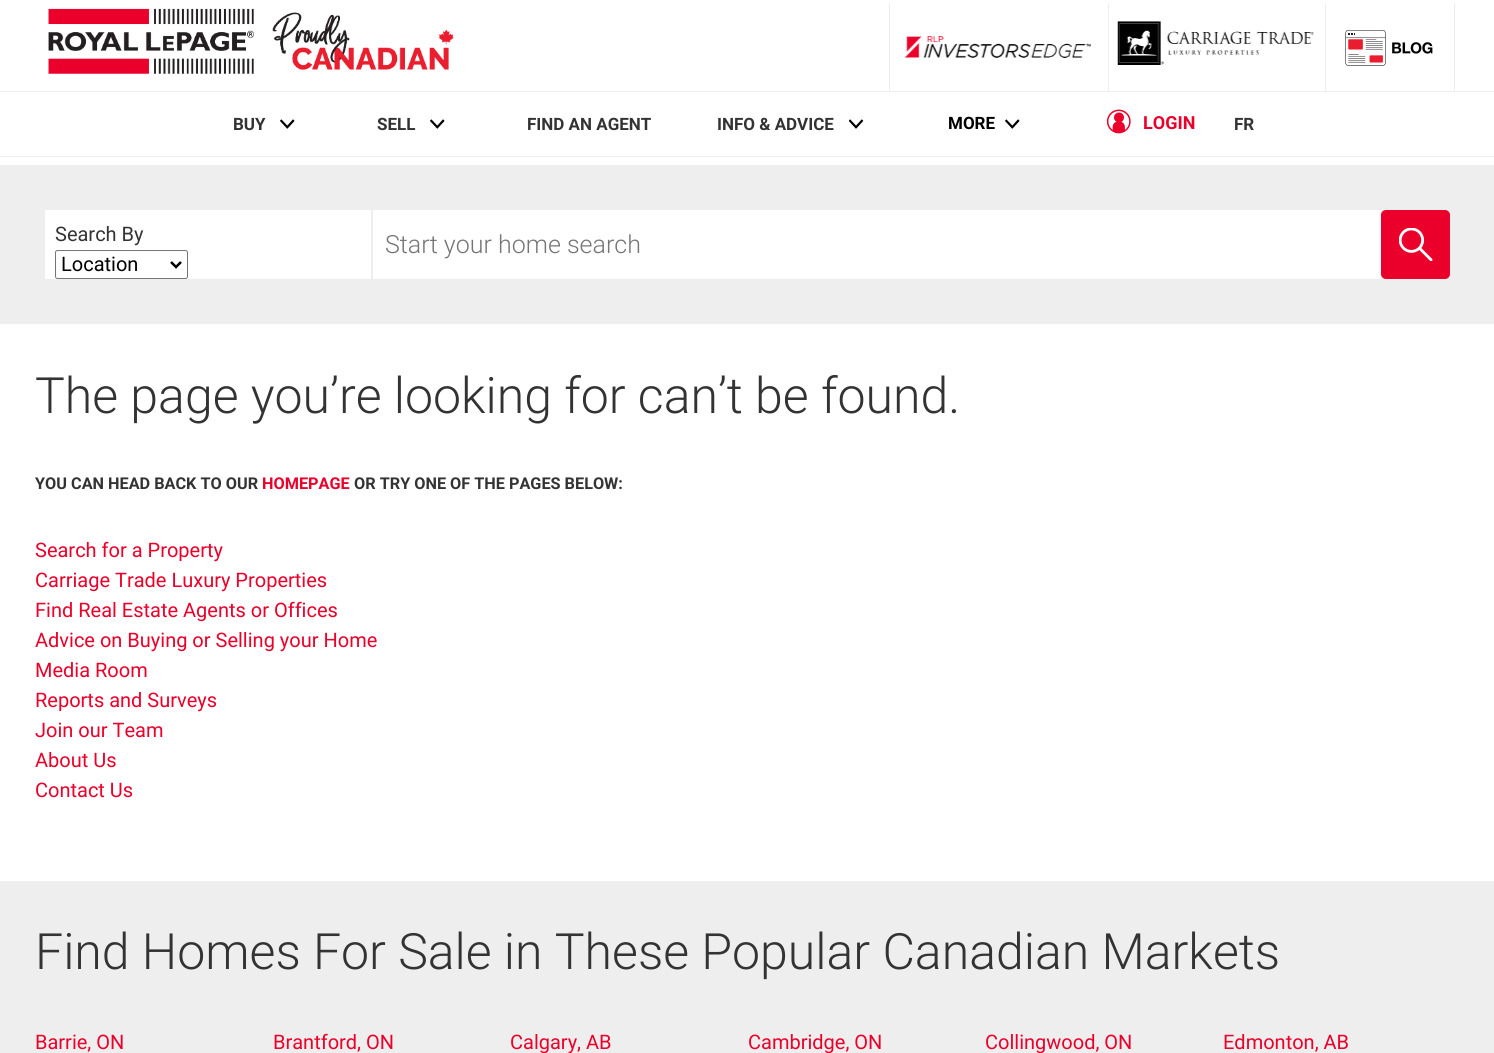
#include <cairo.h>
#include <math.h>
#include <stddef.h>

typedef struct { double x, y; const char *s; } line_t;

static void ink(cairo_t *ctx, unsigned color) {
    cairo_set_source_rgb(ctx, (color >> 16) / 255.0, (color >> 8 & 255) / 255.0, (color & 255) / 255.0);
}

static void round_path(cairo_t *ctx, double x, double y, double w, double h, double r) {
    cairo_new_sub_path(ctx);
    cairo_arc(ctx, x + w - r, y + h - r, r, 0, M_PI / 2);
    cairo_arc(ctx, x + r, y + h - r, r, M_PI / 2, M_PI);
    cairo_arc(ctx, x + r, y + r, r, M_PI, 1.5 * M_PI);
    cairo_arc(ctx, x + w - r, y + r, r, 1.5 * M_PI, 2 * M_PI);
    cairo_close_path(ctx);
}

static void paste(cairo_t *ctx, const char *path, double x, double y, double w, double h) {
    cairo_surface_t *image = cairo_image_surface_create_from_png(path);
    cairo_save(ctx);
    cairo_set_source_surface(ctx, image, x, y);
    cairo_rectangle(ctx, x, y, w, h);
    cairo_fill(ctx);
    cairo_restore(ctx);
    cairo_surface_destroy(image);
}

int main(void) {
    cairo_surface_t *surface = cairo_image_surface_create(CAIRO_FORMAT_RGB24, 1494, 1053);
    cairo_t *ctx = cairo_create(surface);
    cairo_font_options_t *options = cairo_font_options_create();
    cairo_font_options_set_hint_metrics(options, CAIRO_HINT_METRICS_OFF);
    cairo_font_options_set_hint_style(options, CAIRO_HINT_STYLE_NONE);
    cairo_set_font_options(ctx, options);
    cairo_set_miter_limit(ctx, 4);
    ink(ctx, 0xFFFFFF);
    cairo_paint(ctx);
    paste(ctx, "media/1.png", 48, 8, 406, 66);
    ink(ctx, 0xEEEEEE);
    cairo_rectangle(ctx, 889, 3, 1, 88);
    cairo_fill(ctx);
    paste(ctx, "media/2.png", 904, 36, 187, 22);
    cairo_rectangle(ctx, 1108, 3, 1, 88);
    cairo_fill(ctx);
    paste(ctx, "media/3.png", 1117, 21, 197, 44);
    cairo_rectangle(ctx, 1454, 3, 1, 88);
    cairo_fill(ctx);
    cairo_rectangle(ctx, 1325, 3, 1, 88);
    cairo_fill(ctx);
    paste(ctx, "media/4.png", 1345, 30, 88, 36);
    cairo_rectangle(ctx, 0, 91, 1494, 1);
    cairo_fill(ctx);
    cairo_rectangle(ctx, 0, 156, 1494, 1);
    cairo_fill(ctx);
    cairo_select_font_face(ctx, "Roboto", CAIRO_FONT_SLANT_NORMAL, CAIRO_FONT_WEIGHT_BOLD);
    cairo_set_font_size(ctx, 17);
    ink(ctx, 0x333333);
    cairo_move_to(ctx, 233, 130);
    cairo_show_text(ctx, "BUY");
    paste(ctx, "media/5.png", 280, 119, 15, 10);
    cairo_move_to(ctx, 377, 130);
    cairo_show_text(ctx, "SELL");
    paste(ctx, "media/5.png", 430, 119, 15, 10);
    cairo_move_to(ctx, 527, 130);
    cairo_show_text(ctx, "FIND AN AGENT");
    cairo_move_to(ctx, 717, 130);
    cairo_show_text(ctx, "INFO & ADVICE");
    paste(ctx, "media/6.png", 849, 119, 15, 10);
    ink(ctx, 0x000000);
    cairo_move_to(ctx, 948, 129);
    cairo_show_text(ctx, "MORE");
    paste(ctx, "media/5.png", 1005, 119, 15, 10);
    paste(ctx, "media/7.png", 1106, 109, 25, 25);
    cairo_set_font_size(ctx, 18);
    ink(ctx, 0xEA002A);
    cairo_move_to(ctx, 1143, 129);
    cairo_show_text(ctx, "LOGIN");
    cairo_set_font_size(ctx, 17);
    ink(ctx, 0x333333);
    cairo_move_to(ctx, 1234, 130);
    cairo_show_text(ctx, "FR");
    ink(ctx, 0xEEEEEE);
    cairo_rectangle(ctx, 0, 165, 1494, 159);
    cairo_fill(ctx);
    ink(ctx, 0xFFFFFF);
    cairo_rectangle(ctx, 45, 210, 326, 69);
    cairo_fill(ctx);
    cairo_select_font_face(ctx, "Roboto", CAIRO_FONT_SLANT_NORMAL, CAIRO_FONT_WEIGHT_NORMAL);
    cairo_set_font_size(ctx, 20);
    ink(ctx, 0x333333);
    cairo_move_to(ctx, 55, 241);
    cairo_show_text(ctx, "Search By");
    round_path(ctx, 55.5, 250.5, 132, 28, 2);
    ink(ctx, 0x767676);
    cairo_set_line_width(ctx, 1);
    cairo_stroke(ctx);
    cairo_new_path(ctx);
    cairo_move_to(ctx, 171, 262);
    cairo_line_to(ctx, 176, 267);
    cairo_line_to(ctx, 181, 262);
    ink(ctx, 0x000000);
    cairo_set_line_width(ctx, 2.5);
    cairo_stroke(ctx);
    cairo_move_to(ctx, 61, 271);
    cairo_show_text(ctx, "Location");
    ink(ctx, 0xFFFFFF);
    cairo_rectangle(ctx, 373, 210, 1008, 69);
    cairo_fill(ctx);
    cairo_select_font_face(ctx, "Roboto Light", CAIRO_FONT_SLANT_NORMAL, CAIRO_FONT_WEIGHT_NORMAL);
    cairo_set_font_size(ctx, 25);
    ink(ctx, 0x757575);
    cairo_move_to(ctx, 385, 253);
    cairo_show_text(ctx, "Start your home search");
    ink(ctx, 0xEA002A);
    round_path(ctx, 1381, 210, 69, 69, 5);
    cairo_fill(ctx);
    paste(ctx, "media/8.png", 1399, 228, 34, 33);
    cairo_set_font_size(ctx, 50);
    ink(ctx, 0x333333);
    cairo_move_to(ctx, 35, 413);
    cairo_show_text(ctx, "The page you’re looking for can’t be found.");
    cairo_select_font_face(ctx, "Roboto", CAIRO_FONT_SLANT_NORMAL, CAIRO_FONT_WEIGHT_BOLD);
    cairo_set_font_size(ctx, 16.25);
    cairo_move_to(ctx, 35, 489);
    cairo_show_text(ctx, "YOU CAN HEAD BACK TO OUR");
    ink(ctx, 0xEA002A);
    cairo_move_to(ctx, 262, 489);
    cairo_show_text(ctx, "HOMEPAGE");
    ink(ctx, 0x333333);
    cairo_move_to(ctx, 354, 489);
    cairo_show_text(ctx, "OR TRY ONE OF THE PAGES BELOW:");
    cairo_select_font_face(ctx, "Roboto", CAIRO_FONT_SLANT_NORMAL, CAIRO_FONT_WEIGHT_NORMAL);
    cairo_set_font_size(ctx, 20);
    ink(ctx, 0xEA002A);
    {
        static const line_t items[] = {
            {35, 557, "Search for a Property"},
            {35, 587, "Carriage Trade Luxury Properties"},
            {35, 617, "Find Real Estate Agents or Offices"},
            {35, 647, "Advice on Buying or Selling your Home"},
            {35, 677, "Media Room"},
            {35, 707, "Reports and Surveys"},
            {35, 737, "Join our Team"},
            {35, 767, "About Us"},
            {35, 797, "Contact Us"},
        };
        for (size_t i = 0; i < sizeof items / sizeof *items; i++) {
            cairo_move_to(ctx, items[i].x, items[i].y);
            cairo_show_text(ctx, items[i].s);
        }
    }
    ink(ctx, 0xEEEEEE);
    cairo_rectangle(ctx, 0, 881, 1494, 172);
    cairo_fill(ctx);
    cairo_select_font_face(ctx, "Roboto Light", CAIRO_FONT_SLANT_NORMAL, CAIRO_FONT_WEIGHT_NORMAL);
    cairo_set_font_size(ctx, 50);
    ink(ctx, 0x333333);
    cairo_move_to(ctx, 35, 969);
    cairo_show_text(ctx, "Find Homes For Sale in These Popular Canadian Markets");
    cairo_select_font_face(ctx, "Roboto", CAIRO_FONT_SLANT_NORMAL, CAIRO_FONT_WEIGHT_NORMAL);
    cairo_set_font_size(ctx, 20);
    ink(ctx, 0xEA002A);
    {
        static const line_t items[] = {
            {35, 1049, "Barrie, ON"},
            {273, 1049, "Brantford, ON"},
            {510, 1049, "Calgary, AB"},
            {748, 1049, "Cambridge, ON"},
            {985, 1049, "Collingwood, ON"},
            {1223, 1049, "Edmonton, AB"},
        };
        for (size_t i = 0; i < sizeof items / sizeof *items; i++) {
            cairo_move_to(ctx, items[i].x, items[i].y);
            cairo_show_text(ctx, items[i].s);
        }
    }
    cairo_surface_write_to_png(surface, "image.png");
    cairo_font_options_destroy(options);
    cairo_destroy(ctx);
    cairo_surface_destroy(surface);
    return 0;
}
